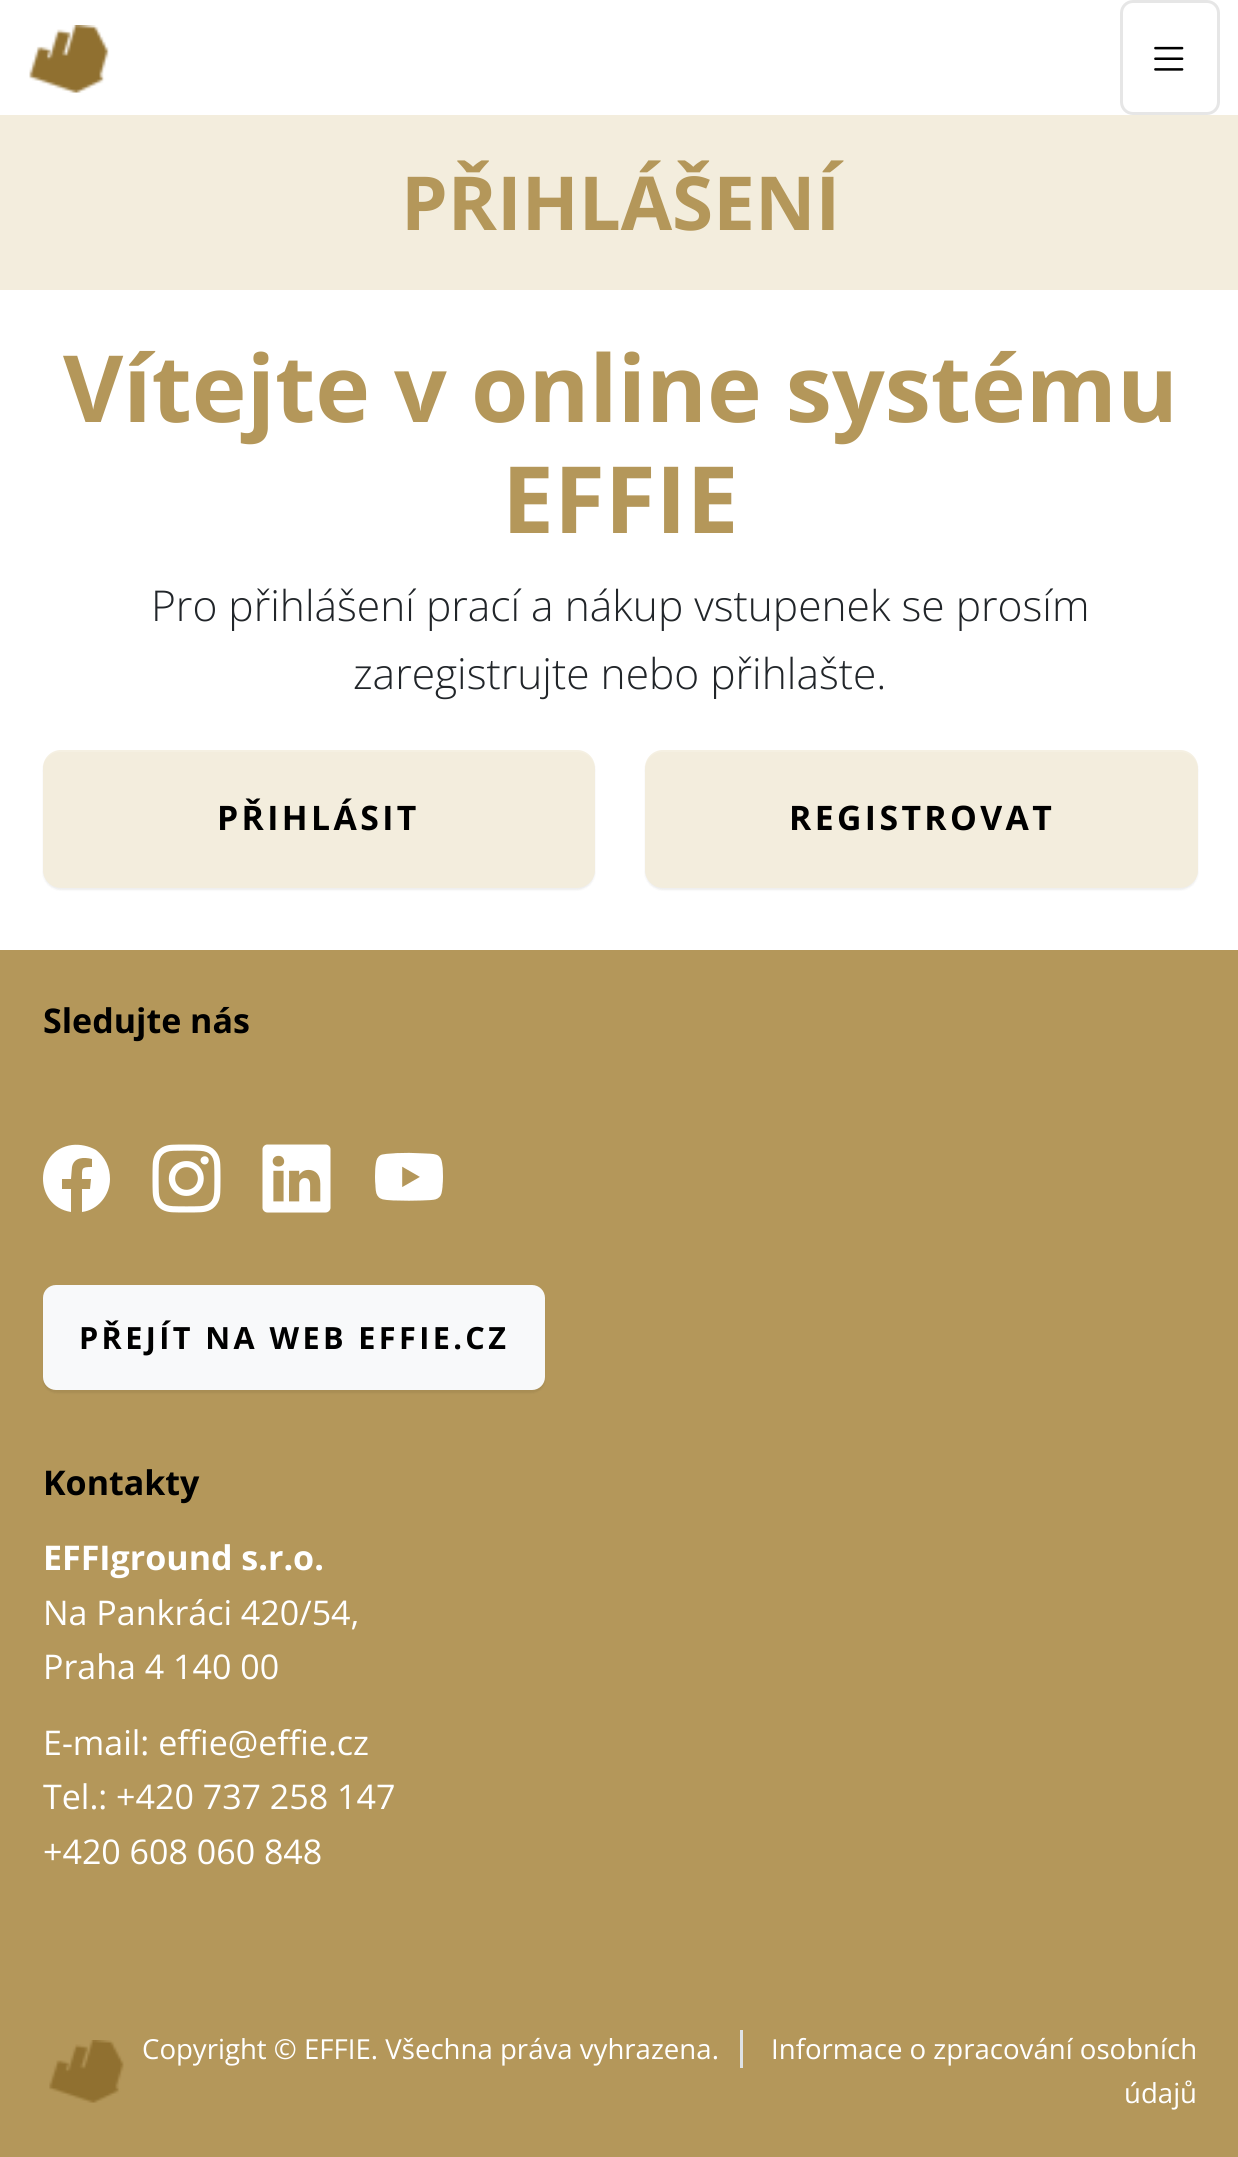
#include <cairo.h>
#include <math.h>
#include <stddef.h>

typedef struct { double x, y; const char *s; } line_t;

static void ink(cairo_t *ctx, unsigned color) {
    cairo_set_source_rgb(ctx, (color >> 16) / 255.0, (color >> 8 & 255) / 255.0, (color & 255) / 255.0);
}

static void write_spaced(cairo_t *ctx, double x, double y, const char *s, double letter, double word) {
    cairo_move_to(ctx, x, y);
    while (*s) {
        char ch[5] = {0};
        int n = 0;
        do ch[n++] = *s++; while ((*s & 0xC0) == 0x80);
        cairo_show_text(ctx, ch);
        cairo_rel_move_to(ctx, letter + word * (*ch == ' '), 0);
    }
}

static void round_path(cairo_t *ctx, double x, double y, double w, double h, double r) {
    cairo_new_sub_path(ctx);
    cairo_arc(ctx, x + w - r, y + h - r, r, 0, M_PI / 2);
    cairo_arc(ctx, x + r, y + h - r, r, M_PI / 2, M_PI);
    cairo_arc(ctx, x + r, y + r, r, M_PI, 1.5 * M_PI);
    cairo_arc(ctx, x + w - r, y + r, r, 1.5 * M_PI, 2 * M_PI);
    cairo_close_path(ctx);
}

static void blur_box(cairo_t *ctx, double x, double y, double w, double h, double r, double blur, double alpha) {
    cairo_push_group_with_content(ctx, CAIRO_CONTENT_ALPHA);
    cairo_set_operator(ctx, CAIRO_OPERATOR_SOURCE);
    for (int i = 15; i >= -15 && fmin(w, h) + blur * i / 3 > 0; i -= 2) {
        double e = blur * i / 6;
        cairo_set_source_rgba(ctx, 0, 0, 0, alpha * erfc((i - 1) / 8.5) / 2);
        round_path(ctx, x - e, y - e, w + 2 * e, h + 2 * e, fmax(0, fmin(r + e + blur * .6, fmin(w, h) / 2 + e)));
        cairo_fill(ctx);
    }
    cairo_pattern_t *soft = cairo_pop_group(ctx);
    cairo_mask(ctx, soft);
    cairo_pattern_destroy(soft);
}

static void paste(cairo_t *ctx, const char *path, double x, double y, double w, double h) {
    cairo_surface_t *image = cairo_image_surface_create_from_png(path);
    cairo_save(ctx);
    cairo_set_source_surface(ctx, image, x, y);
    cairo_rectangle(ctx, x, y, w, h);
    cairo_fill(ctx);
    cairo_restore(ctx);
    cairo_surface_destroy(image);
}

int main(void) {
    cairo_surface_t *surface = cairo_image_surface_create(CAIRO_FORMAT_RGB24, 1238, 2157);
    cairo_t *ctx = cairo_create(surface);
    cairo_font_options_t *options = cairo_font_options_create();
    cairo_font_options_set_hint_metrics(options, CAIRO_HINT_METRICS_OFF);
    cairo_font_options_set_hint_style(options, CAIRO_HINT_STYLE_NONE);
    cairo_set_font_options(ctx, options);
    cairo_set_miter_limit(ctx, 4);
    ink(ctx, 0xFFFFFF);
    cairo_paint(ctx);
    paste(ctx, "media/1.png", 29, 25, 80, 68);
    round_path(ctx, 1121.5, 1.5, 97, 112, 11.5);
    ink(ctx, 0xE6E6E6);
    cairo_set_line_width(ctx, 3);
    cairo_stroke(ctx);
    paste(ctx, "media/2.png", 1154, 46, 30, 25);
    ink(ctx, 0xF3EDDD);
    cairo_rectangle(ctx, 0, 115, 1238, 175);
    cairo_fill(ctx);
    cairo_select_font_face(ctx, "Open Sans", CAIRO_FONT_SLANT_NORMAL, CAIRO_FONT_WEIGHT_BOLD);
    cairo_set_font_size(ctx, 74.5);
    ink(ctx, 0xB4975A);
    cairo_move_to(ctx, 401, 230);
    cairo_show_text(ctx, "PŘIHLÁŠENÍ");
    cairo_set_font_size(ctx, 92.75);
    cairo_move_to(ctx, 63, 422);
    cairo_show_text(ctx, "Vítejte v online systému");
    cairo_move_to(ctx, 502, 533);
    cairo_show_text(ctx, "EFFIE");
    cairo_select_font_face(ctx, "Open Sans Light", CAIRO_FONT_SLANT_NORMAL, CAIRO_FONT_WEIGHT_NORMAL);
    cairo_set_font_size(ctx, 42.5);
    ink(ctx, 0x212529);
    cairo_move_to(ctx, 151, 621);
    cairo_show_text(ctx, "Pro přihlášení prací a nákup vstupenek se prosím");
    cairo_move_to(ctx, 353, 689);
    cairo_show_text(ctx, "zaregistrujte nebo přihlašte.");
    ink(ctx, 0x000000);
    blur_box(ctx, 43, 753, 552, 137, 18, 1, 0.07);
    ink(ctx, 0xF3EDDD);
    round_path(ctx, 43, 750, 552, 138, 18);
    cairo_fill(ctx);
    cairo_set_source_rgba(ctx, 1, 1, 1, 0.15);
    cairo_new_path(ctx);
    cairo_move_to(ctx, 60, 752);
    cairo_line_to(ctx, 578, 752);
    cairo_curve_to(ctx, 587, 752, 595, 760, 595, 770);
    cairo_line_to(ctx, 595, 768);
    cairo_curve_to(ctx, 595, 758, 587, 750, 577, 750);
    cairo_line_to(ctx, 61, 750);
    cairo_curve_to(ctx, 54, 750, 47, 754, 45, 761);
    cairo_curve_to(ctx, 48, 756, 53, 752, 60, 752);
    cairo_close_path(ctx);
    cairo_fill(ctx);
    cairo_select_font_face(ctx, "Open Sans", CAIRO_FONT_SLANT_NORMAL, CAIRO_FONT_WEIGHT_BOLD);
    cairo_set_font_size(ctx, 33.75);
    ink(ctx, 0x000000);
    write_spaced(ctx, 217, 830, "PŘIHLÁSIT", 3.4, 0);
    ink(ctx, 0x000000);
    blur_box(ctx, 645, 753, 553, 137, 18, 1, 0.07);
    ink(ctx, 0xF3EDDD);
    round_path(ctx, 645, 750, 553, 138, 18);
    cairo_fill(ctx);
    cairo_set_source_rgba(ctx, 1, 1, 1, 0.15);
    cairo_new_path(ctx);
    cairo_move_to(ctx, 662, 752);
    cairo_line_to(ctx, 1180, 752);
    cairo_curve_to(ctx, 1190, 752, 1198, 760, 1198, 770);
    cairo_line_to(ctx, 1198, 768);
    cairo_curve_to(ctx, 1198, 758, 1190, 750, 1180, 750);
    cairo_line_to(ctx, 663, 750);
    cairo_curve_to(ctx, 653, 750, 645, 758, 645, 768);
    cairo_line_to(ctx, 645, 770);
    cairo_curve_to(ctx, 645, 760, 653, 752, 662, 752);
    cairo_close_path(ctx);
    cairo_fill(ctx);
    ink(ctx, 0x000000);
    write_spaced(ctx, 789, 830, "REGISTROVAT", 3.4, 0);
    ink(ctx, 0xB4975A);
    cairo_rectangle(ctx, 0, 950, 1238, 1207);
    cairo_fill(ctx);
    cairo_set_font_size(ctx, 34);
    ink(ctx, 0x000000);
    cairo_move_to(ctx, 43, 1033);
    cairo_show_text(ctx, "Sledujte nás");
    ink(ctx, 0xFFFFFF);
    cairo_new_path(ctx);
    cairo_move_to(ctx, 110, 1179);
    cairo_curve_to(ctx, 110, 1167, 105, 1157, 96, 1150);
    cairo_curve_to(ctx, 89, 1146, 80, 1144, 72, 1145);
    cairo_curve_to(ctx, 34, 1150, 33, 1206, 71, 1212);
    cairo_line_to(ctx, 71, 1189);
    cairo_line_to(ctx, 62, 1189);
    cairo_line_to(ctx, 62, 1179);
    cairo_line_to(ctx, 71, 1179);
    cairo_line_to(ctx, 72, 1167);
    cairo_curve_to(ctx, 74, 1157, 84, 1157, 92, 1159);
    cairo_line_to(ctx, 92, 1167);
    cairo_curve_to(ctx, 81, 1167, 82, 1168, 82, 1179);
    cairo_line_to(ctx, 91, 1179);
    cairo_line_to(ctx, 90, 1189);
    cairo_line_to(ctx, 82, 1189);
    cairo_line_to(ctx, 82, 1212);
    cairo_curve_to(ctx, 98, 1210, 110, 1195, 110, 1179);
    cairo_close_path(ctx);
    cairo_fill(ctx);
    paste(ctx, "media/3.png", 152, 1144, 69, 69);
    paste(ctx, "media/4.png", 262, 1144, 69, 69);
    paste(ctx, "media/5.png", 375, 1152, 68, 49);
    ink(ctx, 0x000000);
    blur_box(ctx, 43, 1288, 502, 105, 13, 1, 0.07);
    ink(ctx, 0xF8F9FA);
    round_path(ctx, 44.5, 1286.5, 499, 102, 11.5);
    cairo_fill_preserve(ctx);
    cairo_stroke(ctx);
    cairo_set_font_size(ctx, 30.6);
    ink(ctx, 0x000000);
    write_spaced(ctx, 79, 1349, "PŘEJÍT NA WEB EFFIE.CZ", 3.4, 0);
    cairo_set_font_size(ctx, 34);
    cairo_move_to(ctx, 43, 1495);
    cairo_show_text(ctx, "Kontakty");
    ink(ctx, 0xFFFFFF);
    cairo_move_to(ctx, 43, 1570);
    cairo_show_text(ctx, "EFFIground s.r.o.");
    cairo_select_font_face(ctx, "Open Sans", CAIRO_FONT_SLANT_NORMAL, CAIRO_FONT_WEIGHT_NORMAL);
    {
        static const line_t items[] = {
            {43, 1625, "Na Pankráci 420/54,"},
            {43, 1679, "Praha 4 140 00"},
            {43, 1755, "E-mail: effie@effie.cz"},
            {43, 1809, "Tel.: +420 737 258 147"},
            {43, 1864, "+420 608 060 848"},
        };
        for (size_t i = 0; i < sizeof items / sizeof *items; i++) {
            cairo_move_to(ctx, items[i].x, items[i].y);
            cairo_show_text(ctx, items[i].s);
        }
    }
    paste(ctx, "media/6.png", 49, 2040, 75, 63);
    cairo_set_font_size(ctx, 27.6);
    cairo_move_to(ctx, 142, 2059);
    cairo_show_text(ctx, "Copyright © EFFIE. Všechna práva vyhrazena.");
    ink(ctx, 0xDEE2E6);
    cairo_rectangle(ctx, 740, 2030, 3, 38);
    cairo_fill(ctx);
    ink(ctx, 0xFFFFFF);
    cairo_move_to(ctx, 771, 2059);
    cairo_show_text(ctx, "Informace o zpracování osobních");
    cairo_move_to(ctx, 1124, 2103);
    cairo_show_text(ctx, "údajů");
    cairo_surface_write_to_png(surface, "image.png");
    cairo_font_options_destroy(options);
    cairo_destroy(ctx);
    cairo_surface_destroy(surface);
    return 0;
}
